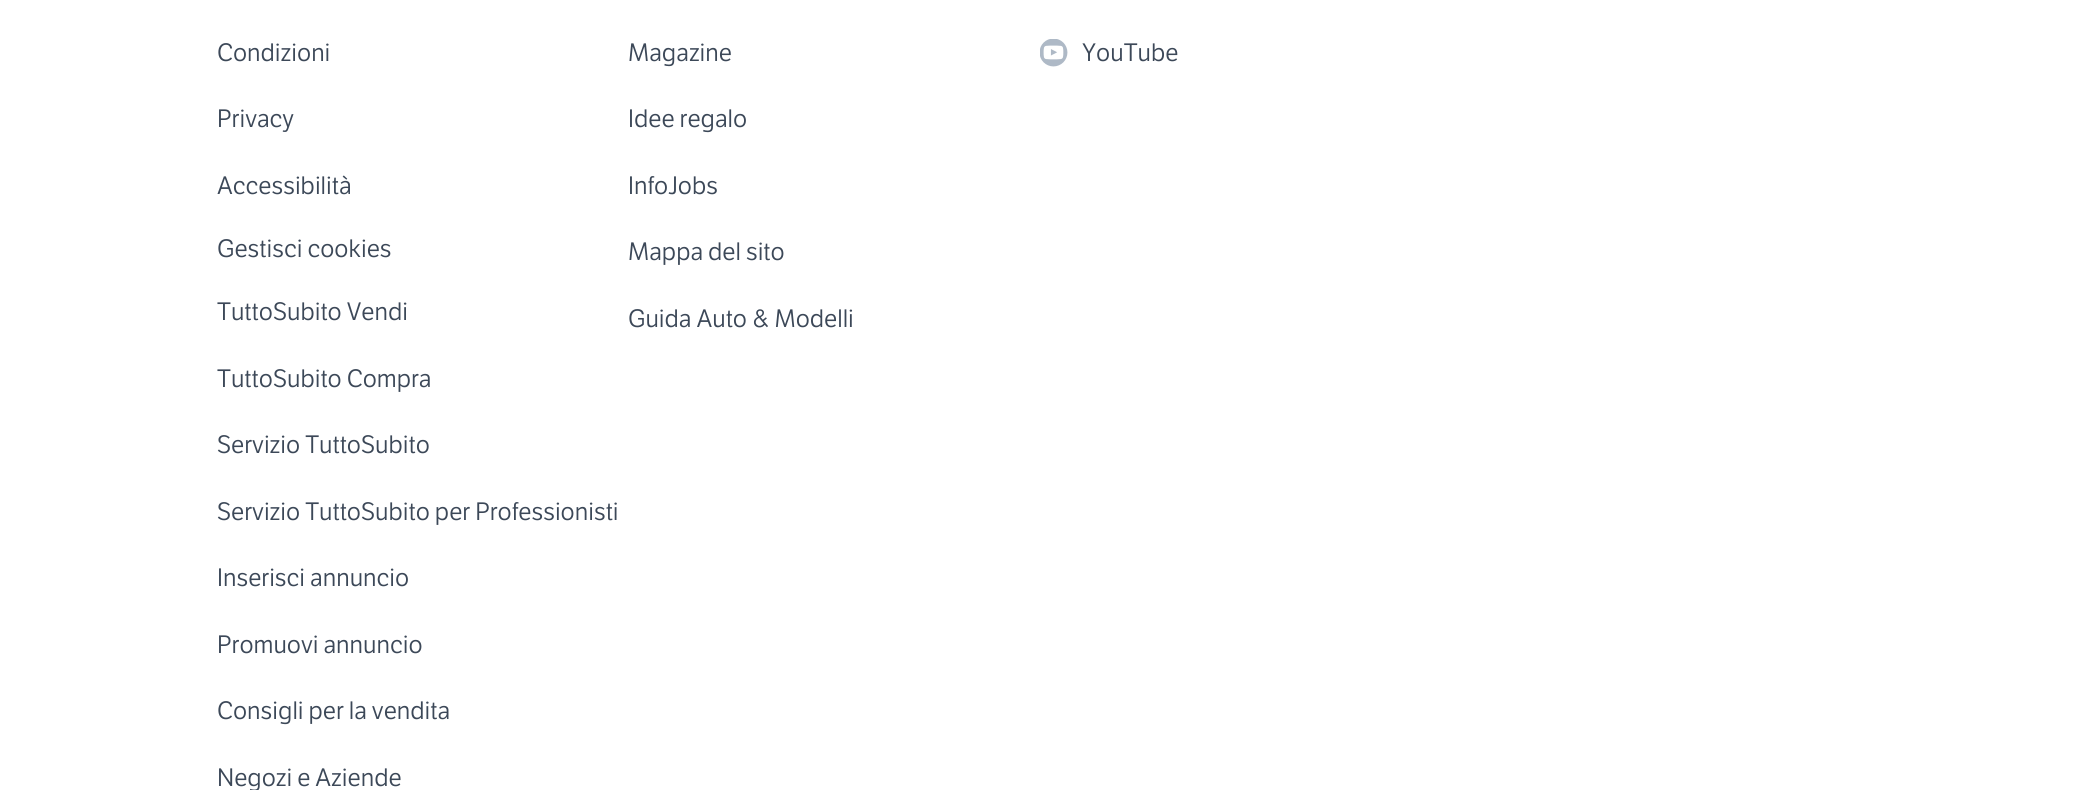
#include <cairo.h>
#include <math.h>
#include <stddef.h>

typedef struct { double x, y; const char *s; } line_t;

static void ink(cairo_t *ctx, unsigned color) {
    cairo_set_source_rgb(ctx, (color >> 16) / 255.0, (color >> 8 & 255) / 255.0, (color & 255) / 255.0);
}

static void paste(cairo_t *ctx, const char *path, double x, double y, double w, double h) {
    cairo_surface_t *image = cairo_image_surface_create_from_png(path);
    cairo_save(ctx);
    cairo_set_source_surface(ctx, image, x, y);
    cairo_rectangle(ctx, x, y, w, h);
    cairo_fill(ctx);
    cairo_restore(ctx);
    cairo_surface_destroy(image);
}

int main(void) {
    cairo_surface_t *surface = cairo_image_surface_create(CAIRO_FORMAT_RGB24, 2079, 790);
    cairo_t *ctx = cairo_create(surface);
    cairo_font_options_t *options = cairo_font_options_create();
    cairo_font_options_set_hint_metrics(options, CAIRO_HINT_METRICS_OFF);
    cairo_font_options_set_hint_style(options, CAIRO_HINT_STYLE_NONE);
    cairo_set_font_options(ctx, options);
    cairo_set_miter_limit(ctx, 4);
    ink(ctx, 0xFFFFFF);
    cairo_paint(ctx);
    cairo_select_font_face(ctx, "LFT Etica", CAIRO_FONT_SLANT_NORMAL, CAIRO_FONT_WEIGHT_NORMAL);
    cairo_set_font_size(ctx, 24.5);
    ink(ctx, 0x3C4858);
    {
        static const line_t items[] = {
            {217, 61, "Condizioni"},
            {217, 127, "Privacy"},
            {217, 194, "Accessibilità"},
            {217, 257, "Gestisci cookies"},
            {217, 320, "TuttoSubito Vendi"},
            {217, 387, "TuttoSubito Compra"},
            {217, 453, "Servizio TuttoSubito"},
            {217, 520, "Servizio TuttoSubito per Professionisti"},
            {217, 586, "Inserisci annuncio"},
            {217, 653, "Promuovi annuncio"},
            {217, 719, "Consigli per la vendita"},
            {217, 786, "Negozi e Aziende"},
            {628, 61, "Magazine"},
            {628, 127, "Idee regalo"},
            {628, 194, "InfoJobs"},
            {628, 260, "Mappa del sito"},
            {628, 327, "Guida Auto & Modelli"},
        };
        for (size_t i = 0; i < sizeof items / sizeof *items; i++) {
            cairo_move_to(ctx, items[i].x, items[i].y);
            cairo_show_text(ctx, items[i].s);
        }
    }
    paste(ctx, "media/1.png", 1040, 39, 28, 28);
    cairo_move_to(ctx, 1082, 61);
    cairo_show_text(ctx, "YouTube");
    cairo_surface_write_to_png(surface, "image.png");
    cairo_font_options_destroy(options);
    cairo_destroy(ctx);
    cairo_surface_destroy(surface);
    return 0;
}
